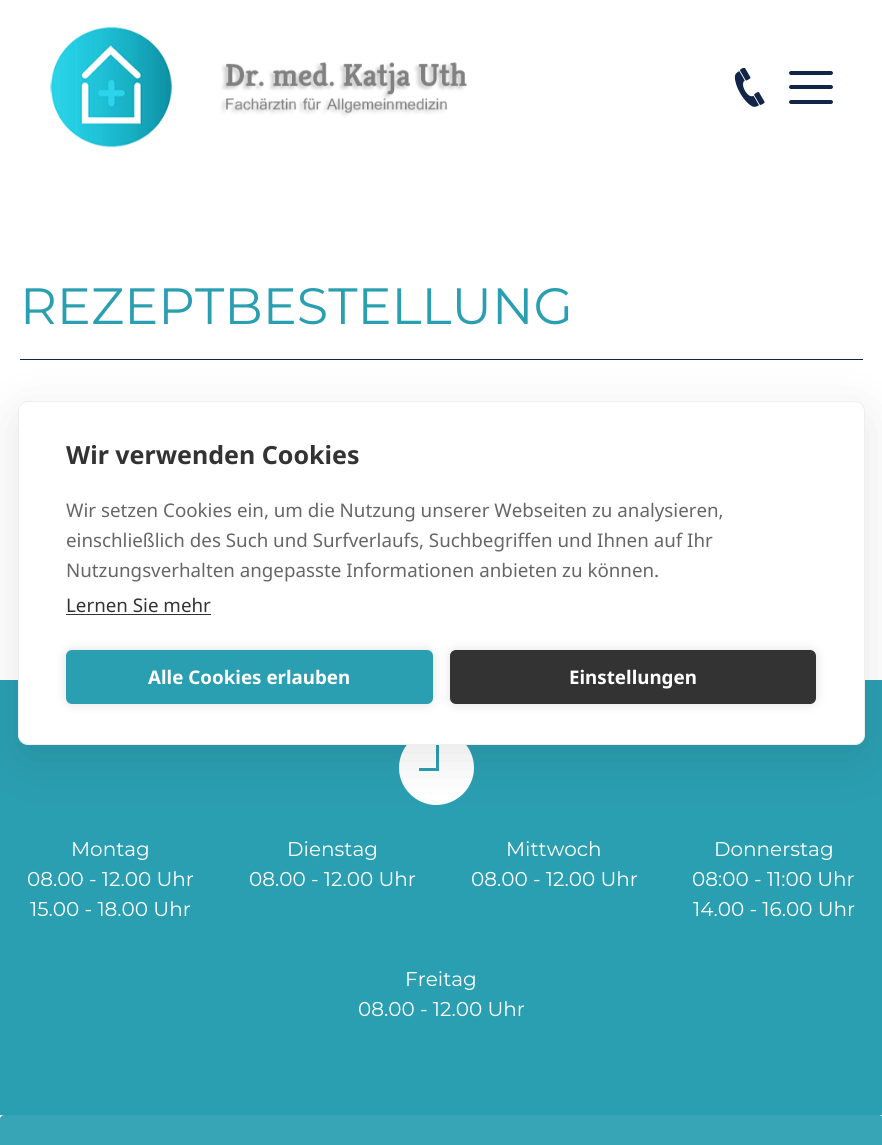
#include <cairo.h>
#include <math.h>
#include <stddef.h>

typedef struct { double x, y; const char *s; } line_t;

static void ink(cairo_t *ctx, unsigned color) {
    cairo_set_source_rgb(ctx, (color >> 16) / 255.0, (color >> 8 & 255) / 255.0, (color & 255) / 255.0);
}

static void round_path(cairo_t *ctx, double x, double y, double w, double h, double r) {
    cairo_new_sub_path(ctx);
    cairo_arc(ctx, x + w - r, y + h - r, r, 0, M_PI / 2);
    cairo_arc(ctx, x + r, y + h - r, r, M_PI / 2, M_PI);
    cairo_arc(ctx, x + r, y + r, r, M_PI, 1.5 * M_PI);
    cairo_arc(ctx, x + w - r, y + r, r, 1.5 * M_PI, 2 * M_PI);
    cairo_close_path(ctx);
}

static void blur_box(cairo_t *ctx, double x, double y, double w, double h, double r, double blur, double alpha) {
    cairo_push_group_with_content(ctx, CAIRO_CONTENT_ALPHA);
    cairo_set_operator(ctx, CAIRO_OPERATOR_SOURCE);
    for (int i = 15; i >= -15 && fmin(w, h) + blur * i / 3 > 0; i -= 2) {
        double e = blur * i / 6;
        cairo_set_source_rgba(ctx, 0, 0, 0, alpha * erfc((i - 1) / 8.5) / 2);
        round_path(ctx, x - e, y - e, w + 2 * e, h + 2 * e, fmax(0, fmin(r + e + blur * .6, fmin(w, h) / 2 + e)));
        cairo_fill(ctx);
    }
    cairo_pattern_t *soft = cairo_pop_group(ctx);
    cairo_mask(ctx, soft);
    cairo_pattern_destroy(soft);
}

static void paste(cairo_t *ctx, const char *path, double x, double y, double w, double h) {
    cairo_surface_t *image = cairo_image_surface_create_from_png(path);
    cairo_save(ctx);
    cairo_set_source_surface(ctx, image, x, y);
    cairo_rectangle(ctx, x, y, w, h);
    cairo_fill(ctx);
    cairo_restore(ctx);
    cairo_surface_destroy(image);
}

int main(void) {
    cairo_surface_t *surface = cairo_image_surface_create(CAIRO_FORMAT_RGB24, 882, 1145);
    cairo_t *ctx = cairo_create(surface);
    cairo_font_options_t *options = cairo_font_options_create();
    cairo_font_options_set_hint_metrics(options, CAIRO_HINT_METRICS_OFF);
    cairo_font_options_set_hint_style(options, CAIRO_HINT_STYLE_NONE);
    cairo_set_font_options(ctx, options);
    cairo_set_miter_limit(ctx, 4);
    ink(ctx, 0xFFFFFF);
    cairo_paint(ctx);
    paste(ctx, "media/1.png", 50, 26, 417, 122);
    paste(ctx, "media/2.png", 734, 68, 31, 39);
    ink(ctx, 0x102548);
    cairo_new_path(ctx);
    cairo_move_to(ctx, 791, 71);
    cairo_line_to(ctx, 811, 71);
    cairo_line_to(ctx, 811, 75);
    cairo_line_to(ctx, 791, 75);
    cairo_curve_to(ctx, 790, 75, 789, 74, 789, 73);
    cairo_curve_to(ctx, 789, 72, 790, 71, 791, 71);
    cairo_close_path(ctx);
    cairo_fill(ctx);
    cairo_new_path(ctx);
    cairo_move_to(ctx, 811, 71);
    cairo_line_to(ctx, 831, 71);
    cairo_curve_to(ctx, 832, 71, 833, 72, 833, 73);
    cairo_curve_to(ctx, 833, 74, 832, 75, 831, 75);
    cairo_line_to(ctx, 811, 75);
    cairo_close_path(ctx);
    cairo_fill(ctx);
    cairo_new_path(ctx);
    cairo_move_to(ctx, 791, 85);
    cairo_line_to(ctx, 811, 85);
    cairo_line_to(ctx, 811, 89);
    cairo_line_to(ctx, 791, 89);
    cairo_curve_to(ctx, 790, 89, 789, 88, 789, 87);
    cairo_curve_to(ctx, 789, 86, 790, 85, 791, 85);
    cairo_close_path(ctx);
    cairo_fill(ctx);
    cairo_new_path(ctx);
    cairo_move_to(ctx, 811, 85);
    cairo_line_to(ctx, 831, 85);
    cairo_curve_to(ctx, 832, 85, 833, 86, 833, 87);
    cairo_curve_to(ctx, 833, 88, 832, 89, 831, 89);
    cairo_line_to(ctx, 811, 89);
    cairo_close_path(ctx);
    cairo_fill(ctx);
    cairo_new_path(ctx);
    cairo_move_to(ctx, 791, 100);
    cairo_line_to(ctx, 811, 100);
    cairo_line_to(ctx, 811, 104);
    cairo_line_to(ctx, 791, 104);
    cairo_curve_to(ctx, 790, 104, 789, 103, 789, 102);
    cairo_curve_to(ctx, 789, 101, 790, 100, 791, 100);
    cairo_close_path(ctx);
    cairo_fill(ctx);
    cairo_new_path(ctx);
    cairo_move_to(ctx, 811, 100);
    cairo_line_to(ctx, 831, 100);
    cairo_curve_to(ctx, 832, 100, 833, 101, 833, 102);
    cairo_curve_to(ctx, 833, 103, 832, 104, 831, 104);
    cairo_line_to(ctx, 811, 104);
    cairo_close_path(ctx);
    cairo_fill(ctx);
    cairo_rectangle(ctx, 20, 359, 843, 1);
    cairo_fill(ctx);
    cairo_select_font_face(ctx, "Montserrat Thin", CAIRO_FONT_SLANT_NORMAL, CAIRO_FONT_WEIGHT_NORMAL);
    cairo_set_font_size(ctx, 51);
    ink(ctx, 0x2A9FB1);
    cairo_move_to(ctx, 20, 324);
    cairo_show_text(ctx, "REZEPTBESTELLUNG");
    cairo_rectangle(ctx, 0, 680, 882, 435);
    cairo_fill(ctx);
    ink(ctx, 0xFFFFFF);
    cairo_new_path(ctx);
    cairo_move_to(ctx, 436, 730);
    cairo_curve_to(ctx, 457, 730, 474, 747, 474, 768);
    cairo_curve_to(ctx, 474, 788, 457, 805, 436, 805);
    cairo_curve_to(ctx, 416, 805, 399, 788, 399, 768);
    cairo_curve_to(ctx, 399, 747, 416, 730, 436, 730);
    cairo_close_path(ctx);
    cairo_move_to(ctx, 439, 771);
    cairo_line_to(ctx, 439, 744);
    cairo_line_to(ctx, 436, 744);
    cairo_line_to(ctx, 436, 768);
    cairo_line_to(ctx, 419, 768);
    cairo_line_to(ctx, 419, 771);
    cairo_close_path(ctx);
    cairo_fill(ctx);
    ink(ctx, 0x000000);
    blur_box(ctx, 18, 414, 847, 344, 10, 25, 0.1);
    ink(ctx, 0xFFFFFF);
    round_path(ctx, 18.5, 401.5, 846, 343, 9.5);
    cairo_fill_preserve(ctx);
    ink(ctx, 0xEEEEEE);
    cairo_set_line_width(ctx, 1);
    cairo_stroke(ctx);
    cairo_select_font_face(ctx, "Noto Sans", CAIRO_FONT_SLANT_NORMAL, CAIRO_FONT_WEIGHT_BOLD);
    cairo_set_font_size(ctx, 25);
    ink(ctx, 0x333333);
    cairo_move_to(ctx, 66, 464);
    cairo_show_text(ctx, "Wir verwenden Cookies");
    cairo_select_font_face(ctx, "Noto Sans", CAIRO_FONT_SLANT_NORMAL, CAIRO_FONT_WEIGHT_NORMAL);
    cairo_set_font_size(ctx, 18.75);
    ink(ctx, 0x666666);
    {
        static const line_t items[] = {
            {66, 517, "Wir setzen Cookies ein, um die Nutzung unserer Webseiten zu analysieren,"},
            {66, 547, "einschließlich des Such und Surfverlaufs, Suchbegriffen und Ihnen auf Ihr"},
            {66, 577, "Nutzungsverhalten angepasste Informationen anbieten zu können."},
        };
        for (size_t i = 0; i < sizeof items / sizeof *items; i++) {
            cairo_move_to(ctx, items[i].x, items[i].y);
            cairo_show_text(ctx, items[i].s);
        }
    }
    ink(ctx, 0x333333);
    cairo_move_to(ctx, 66, 612);
    cairo_show_text(ctx, "Lernen Sie mehr");
    cairo_rectangle(ctx, 66, 614, 145, 1);
    cairo_fill(ctx);
    ink(ctx, 0x000000);
    blur_box(ctx, 66, 650, 367, 54, 6, 6, 0.12);
    ink(ctx, 0x2A9FB1);
    round_path(ctx, 66, 650, 367, 54, 6);
    cairo_fill(ctx);
    cairo_select_font_face(ctx, "Noto Sans", CAIRO_FONT_SLANT_NORMAL, CAIRO_FONT_WEIGHT_BOLD);
    ink(ctx, 0xFFFFFF);
    cairo_move_to(ctx, 148, 684);
    cairo_show_text(ctx, "Alle Cookies erlauben");
    ink(ctx, 0x000000);
    blur_box(ctx, 450, 650, 366, 54, 6, 6, 0.12);
    ink(ctx, 0x333333);
    round_path(ctx, 450, 650, 366, 54, 6);
    cairo_fill(ctx);
    ink(ctx, 0xFFFFFF);
    cairo_move_to(ctx, 569, 684);
    cairo_show_text(ctx, "Einstellungen");
    cairo_select_font_face(ctx, "Montserrat Thin", CAIRO_FONT_SLANT_NORMAL, CAIRO_FONT_WEIGHT_NORMAL);
    cairo_set_font_size(ctx, 20);
    {
        static const line_t items[] = {
            {71, 856, "Montag"},
            {27, 886, "08.00 - 12.00 Uhr"},
            {30, 916, "15.00 - 18.00 Uhr"},
            {287, 856, "Dienstag"},
            {249, 886, "08.00 - 12.00 Uhr"},
            {506, 856, "Mittwoch"},
            {471, 886, "08.00 - 12.00 Uhr"},
            {714, 856, "Donnerstag"},
            {692, 886, "08:00 - 11:00 Uhr"},
            {693, 916, "14.00 - 16.00 Uhr"},
            {405, 986, "Freitag"},
            {358, 1016, "08.00 - 12.00 Uhr"},
        };
        for (size_t i = 0; i < sizeof items / sizeof *items; i++) {
            cairo_move_to(ctx, items[i].x, items[i].y);
            cairo_show_text(ctx, items[i].s);
        }
    }
    ink(ctx, 0x38A5B6);
    round_path(ctx, 0, 1115, 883, 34, 4);
    cairo_fill(ctx);
    cairo_surface_write_to_png(surface, "image.png");
    cairo_font_options_destroy(options);
    cairo_destroy(ctx);
    cairo_surface_destroy(surface);
    return 0;
}
